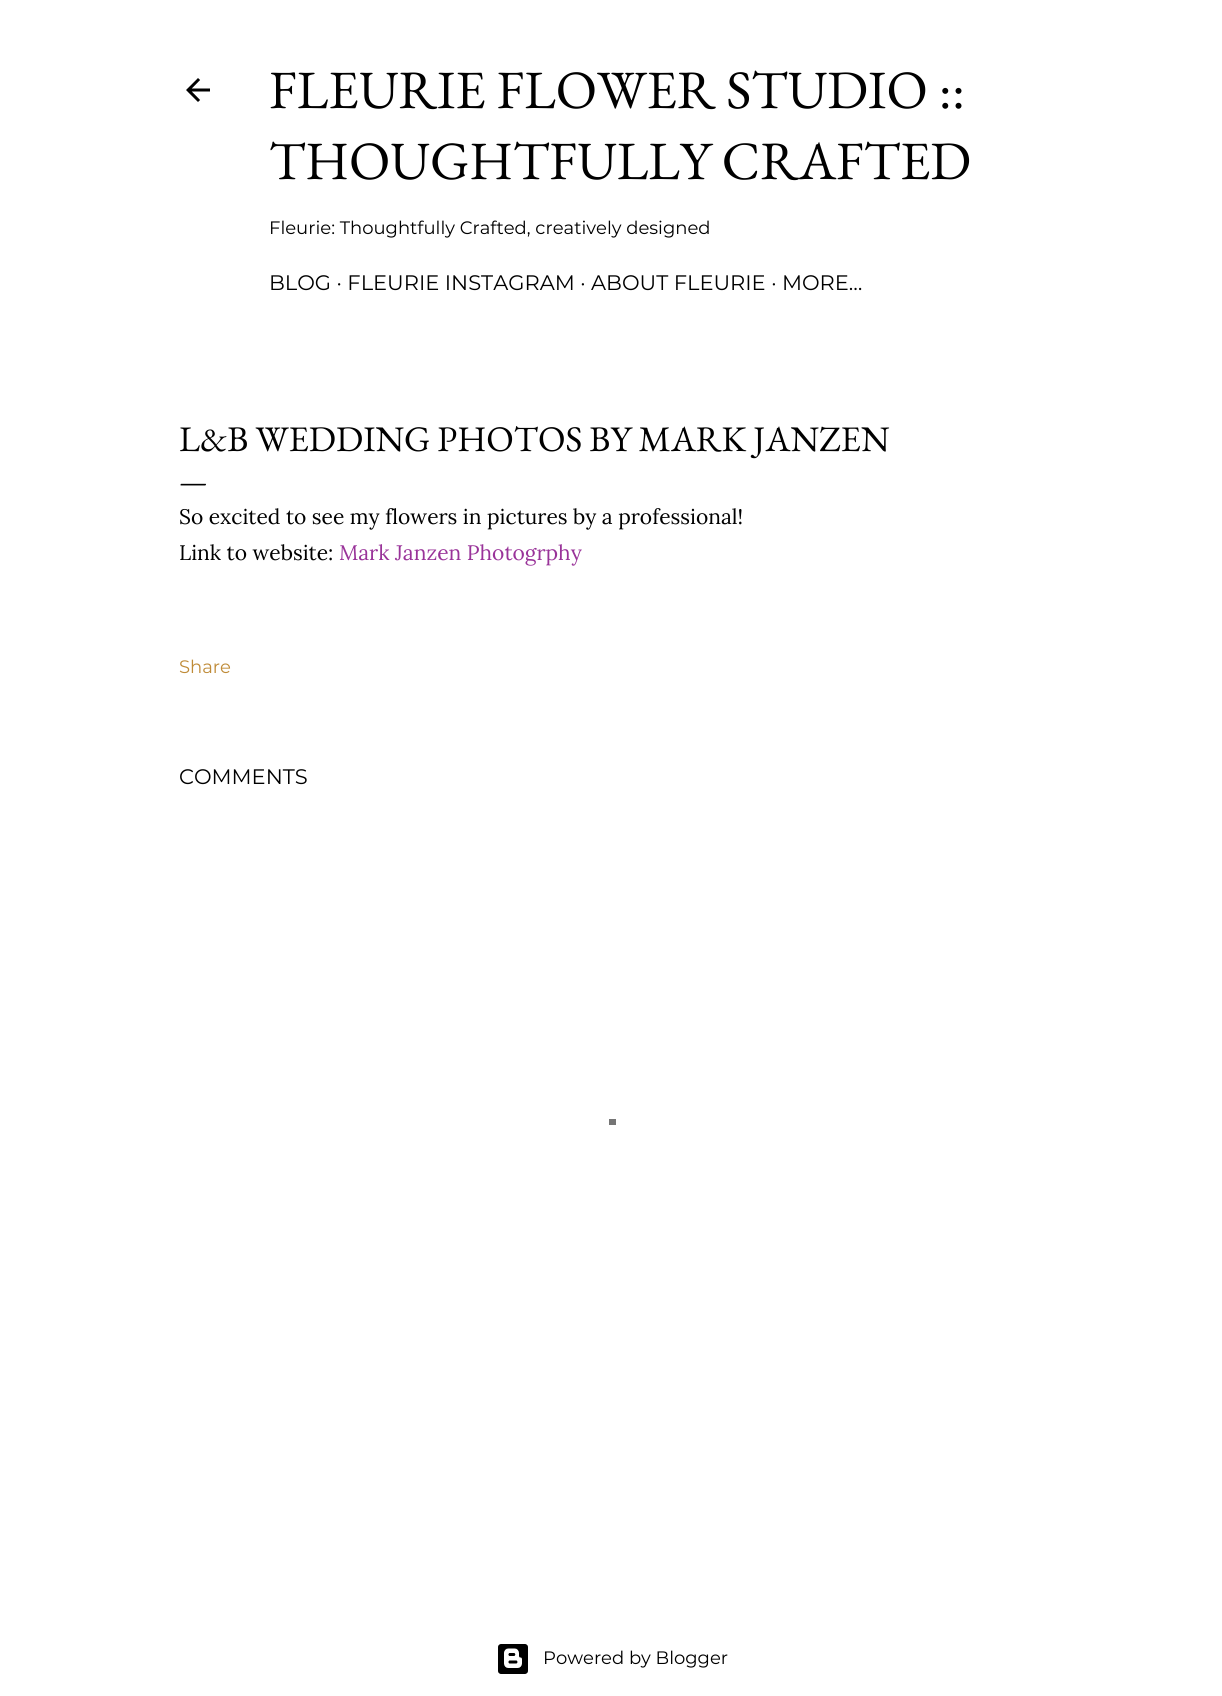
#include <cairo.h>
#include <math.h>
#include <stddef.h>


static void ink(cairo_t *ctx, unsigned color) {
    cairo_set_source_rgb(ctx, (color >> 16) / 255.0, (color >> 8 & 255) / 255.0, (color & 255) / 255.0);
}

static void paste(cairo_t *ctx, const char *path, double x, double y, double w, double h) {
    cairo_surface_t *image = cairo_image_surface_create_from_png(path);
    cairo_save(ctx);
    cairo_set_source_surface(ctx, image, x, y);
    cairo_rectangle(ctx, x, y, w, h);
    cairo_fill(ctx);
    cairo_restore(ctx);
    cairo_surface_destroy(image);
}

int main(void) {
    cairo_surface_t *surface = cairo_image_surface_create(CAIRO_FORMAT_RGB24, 1222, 1696);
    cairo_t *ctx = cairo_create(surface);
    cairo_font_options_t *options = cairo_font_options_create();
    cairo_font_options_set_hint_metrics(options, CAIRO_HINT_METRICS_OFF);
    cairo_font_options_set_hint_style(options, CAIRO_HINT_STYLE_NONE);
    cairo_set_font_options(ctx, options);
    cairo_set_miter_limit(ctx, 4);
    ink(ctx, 0xFFFFFF);
    cairo_paint(ctx);
    paste(ctx, "media/1.png", 186, 78, 24, 24);
    cairo_select_font_face(ctx, "EB Garamond", CAIRO_FONT_SLANT_NORMAL, CAIRO_FONT_WEIGHT_NORMAL);
    cairo_set_font_size(ctx, 54);
    ink(ctx, 0x000000);
    cairo_move_to(ctx, 269, 108);
    cairo_show_text(ctx, "FLEURIE FLOWER STUDIO ::");
    cairo_move_to(ctx, 269, 179);
    cairo_show_text(ctx, "THOUGHTFULLY CRAFTED");
    cairo_select_font_face(ctx, "Montserrat", CAIRO_FONT_SLANT_NORMAL, CAIRO_FONT_WEIGHT_NORMAL);
    cairo_set_font_size(ctx, 18);
    cairo_move_to(ctx, 269, 234);
    cairo_show_text(ctx, "Fleurie: Thoughtfully Crafted, creatively designed");
    cairo_set_font_size(ctx, 21);
    cairo_move_to(ctx, 269, 290);
    cairo_show_text(ctx, "BLOG · FLEURIE INSTAGRAM · ABOUT FLEURIE · MORE…");
    cairo_select_font_face(ctx, "EB Garamond", CAIRO_FONT_SLANT_NORMAL, CAIRO_FONT_WEIGHT_NORMAL);
    cairo_set_font_size(ctx, 36);
    cairo_move_to(ctx, 179, 451);
    cairo_show_text(ctx, "L&B WEDDING PHOTOS BY MARK JANZEN");
    cairo_set_font_size(ctx, 30);
    cairo_move_to(ctx, 179, 491);
    cairo_show_text(ctx, "—");
    cairo_select_font_face(ctx, "Lora", CAIRO_FONT_SLANT_NORMAL, CAIRO_FONT_WEIGHT_NORMAL);
    cairo_set_font_size(ctx, 21);
    cairo_move_to(ctx, 179, 524);
    cairo_show_text(ctx, "So excited to see my flowers in pictures by a professional!");
    cairo_move_to(ctx, 179, 560);
    cairo_show_text(ctx, "Link to website:");
    ink(ctx, 0x993399);
    cairo_move_to(ctx, 339, 560);
    cairo_show_text(ctx, "Mark Janzen Photogrphy");
    cairo_select_font_face(ctx, "Montserrat", CAIRO_FONT_SLANT_NORMAL, CAIRO_FONT_WEIGHT_NORMAL);
    cairo_set_font_size(ctx, 18);
    ink(ctx, 0xBF8B38);
    cairo_move_to(ctx, 179, 673);
    cairo_show_text(ctx, "Share");
    cairo_set_font_size(ctx, 21);
    ink(ctx, 0x000000);
    cairo_move_to(ctx, 179, 784);
    cairo_show_text(ctx, "COMMENTS");
    paste(ctx, "media/2.png", 498, 1644, 30, 30);
    cairo_set_font_size(ctx, 18);
    cairo_move_to(ctx, 543, 1664);
    cairo_show_text(ctx, "Powered by Blogger");
    ink(ctx, 0x757575);
    cairo_rectangle(ctx, 609, 1119, 7, 6);
    cairo_fill(ctx);
    cairo_surface_write_to_png(surface, "image.png");
    cairo_font_options_destroy(options);
    cairo_destroy(ctx);
    cairo_surface_destroy(surface);
    return 0;
}
